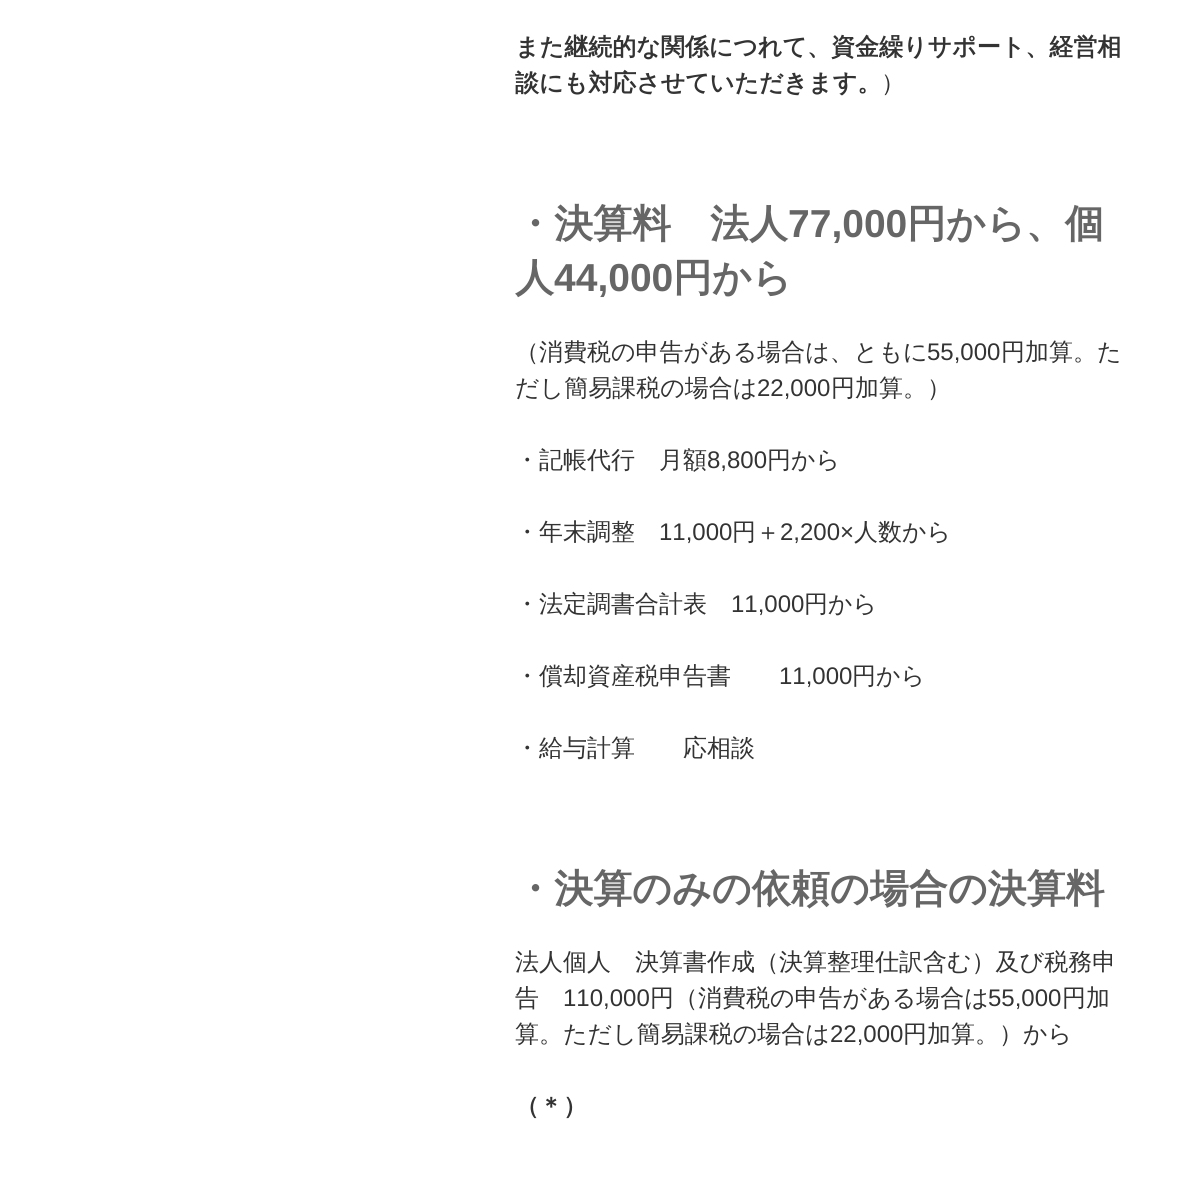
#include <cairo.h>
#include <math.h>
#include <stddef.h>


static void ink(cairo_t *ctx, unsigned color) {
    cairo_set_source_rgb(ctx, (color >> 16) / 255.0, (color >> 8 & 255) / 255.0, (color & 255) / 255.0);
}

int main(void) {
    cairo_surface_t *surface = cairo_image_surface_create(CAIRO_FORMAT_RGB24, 1198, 1198);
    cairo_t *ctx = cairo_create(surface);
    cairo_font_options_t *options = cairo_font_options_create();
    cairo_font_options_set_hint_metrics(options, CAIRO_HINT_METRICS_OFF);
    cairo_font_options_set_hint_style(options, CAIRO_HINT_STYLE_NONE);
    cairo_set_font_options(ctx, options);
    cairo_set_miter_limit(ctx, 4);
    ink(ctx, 0xFFFFFF);
    cairo_paint(ctx);
    cairo_select_font_face(ctx, "WenQuanYi Zen Hei", CAIRO_FONT_SLANT_NORMAL, CAIRO_FONT_WEIGHT_BOLD);
    cairo_set_font_size(ctx, 24);
    ink(ctx, 0x333333);
    cairo_move_to(ctx, 515, 55);
    cairo_show_text(ctx, "また継続的な関係につれて、資金繰りサポート、経営相");
    cairo_move_to(ctx, 515, 91);
    cairo_show_text(ctx, "談にも対応させていただきます。");
    cairo_select_font_face(ctx, "WenQuanYi Zen Hei Medium", CAIRO_FONT_SLANT_NORMAL, CAIRO_FONT_WEIGHT_NORMAL);
    cairo_move_to(ctx, 881, 91);
    cairo_show_text(ctx, "）");
    cairo_select_font_face(ctx, "WenQuanYi Zen Hei", CAIRO_FONT_SLANT_NORMAL, CAIRO_FONT_WEIGHT_BOLD);
    cairo_set_font_size(ctx, 39);
    ink(ctx, 0x666666);
    cairo_move_to(ctx, 515, 237);
    cairo_show_text(ctx, "・決算料");
    cairo_move_to(ctx, 710, 237);
    cairo_show_text(ctx, "法人");
    cairo_select_font_face(ctx, "Liberation Sans", CAIRO_FONT_SLANT_NORMAL, CAIRO_FONT_WEIGHT_BOLD);
    cairo_move_to(ctx, 788, 237);
    cairo_show_text(ctx, "77,000");
    cairo_select_font_face(ctx, "WenQuanYi Zen Hei", CAIRO_FONT_SLANT_NORMAL, CAIRO_FONT_WEIGHT_BOLD);
    cairo_move_to(ctx, 907, 237);
    cairo_show_text(ctx, "円から、個");
    cairo_move_to(ctx, 515, 291);
    cairo_show_text(ctx, "人");
    cairo_select_font_face(ctx, "Liberation Sans", CAIRO_FONT_SLANT_NORMAL, CAIRO_FONT_WEIGHT_BOLD);
    cairo_move_to(ctx, 554, 291);
    cairo_show_text(ctx, "44,000");
    cairo_select_font_face(ctx, "WenQuanYi Zen Hei", CAIRO_FONT_SLANT_NORMAL, CAIRO_FONT_WEIGHT_BOLD);
    cairo_move_to(ctx, 673, 291);
    cairo_show_text(ctx, "円から");
    cairo_select_font_face(ctx, "WenQuanYi Zen Hei Medium", CAIRO_FONT_SLANT_NORMAL, CAIRO_FONT_WEIGHT_NORMAL);
    cairo_set_font_size(ctx, 24);
    ink(ctx, 0x333333);
    cairo_move_to(ctx, 515, 360);
    cairo_show_text(ctx, "（消費税の申告がある場合は、ともに");
    cairo_select_font_face(ctx, "Liberation Sans", CAIRO_FONT_SLANT_NORMAL, CAIRO_FONT_WEIGHT_NORMAL);
    cairo_move_to(ctx, 927, 360);
    cairo_show_text(ctx, "55,000");
    cairo_select_font_face(ctx, "WenQuanYi Zen Hei Medium", CAIRO_FONT_SLANT_NORMAL, CAIRO_FONT_WEIGHT_NORMAL);
    cairo_move_to(ctx, 1001, 360);
    cairo_show_text(ctx, "円加算。た");
    cairo_move_to(ctx, 515, 396);
    cairo_show_text(ctx, "だし簡易課税の場合は");
    cairo_select_font_face(ctx, "Liberation Sans", CAIRO_FONT_SLANT_NORMAL, CAIRO_FONT_WEIGHT_NORMAL);
    cairo_move_to(ctx, 757, 396);
    cairo_show_text(ctx, "22,000");
    cairo_select_font_face(ctx, "WenQuanYi Zen Hei Medium", CAIRO_FONT_SLANT_NORMAL, CAIRO_FONT_WEIGHT_NORMAL);
    cairo_move_to(ctx, 831, 396);
    cairo_show_text(ctx, "円加算。）");
    cairo_move_to(ctx, 515, 468);
    cairo_show_text(ctx, "・記帳代行　月額");
    cairo_select_font_face(ctx, "Liberation Sans", CAIRO_FONT_SLANT_NORMAL, CAIRO_FONT_WEIGHT_NORMAL);
    cairo_move_to(ctx, 707, 468);
    cairo_show_text(ctx, "8,800");
    cairo_select_font_face(ctx, "WenQuanYi Zen Hei Medium", CAIRO_FONT_SLANT_NORMAL, CAIRO_FONT_WEIGHT_NORMAL);
    cairo_move_to(ctx, 767, 468);
    cairo_show_text(ctx, "円から");
    cairo_move_to(ctx, 515, 540);
    cairo_show_text(ctx, "・年末調整");
    cairo_select_font_face(ctx, "Liberation Sans", CAIRO_FONT_SLANT_NORMAL, CAIRO_FONT_WEIGHT_NORMAL);
    cairo_move_to(ctx, 659, 540);
    cairo_show_text(ctx, "11,000");
    cairo_select_font_face(ctx, "WenQuanYi Zen Hei Medium", CAIRO_FONT_SLANT_NORMAL, CAIRO_FONT_WEIGHT_NORMAL);
    cairo_move_to(ctx, 732, 540);
    cairo_show_text(ctx, "円＋");
    cairo_select_font_face(ctx, "Liberation Sans", CAIRO_FONT_SLANT_NORMAL, CAIRO_FONT_WEIGHT_NORMAL);
    cairo_move_to(ctx, 780, 540);
    cairo_show_text(ctx, "2,200×");
    cairo_select_font_face(ctx, "WenQuanYi Zen Hei Medium", CAIRO_FONT_SLANT_NORMAL, CAIRO_FONT_WEIGHT_NORMAL);
    cairo_move_to(ctx, 854, 540);
    cairo_show_text(ctx, "人数から");
    cairo_move_to(ctx, 515, 612);
    cairo_show_text(ctx, "・法定調書合計表");
    cairo_select_font_face(ctx, "Liberation Sans", CAIRO_FONT_SLANT_NORMAL, CAIRO_FONT_WEIGHT_NORMAL);
    cairo_move_to(ctx, 731, 612);
    cairo_show_text(ctx, "11,000");
    cairo_select_font_face(ctx, "WenQuanYi Zen Hei Medium", CAIRO_FONT_SLANT_NORMAL, CAIRO_FONT_WEIGHT_NORMAL);
    cairo_move_to(ctx, 804, 612);
    cairo_show_text(ctx, "円から");
    cairo_move_to(ctx, 515, 684);
    cairo_show_text(ctx, "・償却資産税申告書");
    cairo_select_font_face(ctx, "Liberation Sans", CAIRO_FONT_SLANT_NORMAL, CAIRO_FONT_WEIGHT_NORMAL);
    cairo_move_to(ctx, 779, 684);
    cairo_show_text(ctx, "11,000");
    cairo_select_font_face(ctx, "WenQuanYi Zen Hei Medium", CAIRO_FONT_SLANT_NORMAL, CAIRO_FONT_WEIGHT_NORMAL);
    cairo_move_to(ctx, 852, 684);
    cairo_show_text(ctx, "円から");
    cairo_move_to(ctx, 515, 756);
    cairo_show_text(ctx, "・給与計算　　応相談");
    cairo_select_font_face(ctx, "WenQuanYi Zen Hei", CAIRO_FONT_SLANT_NORMAL, CAIRO_FONT_WEIGHT_BOLD);
    cairo_set_font_size(ctx, 39);
    ink(ctx, 0x666666);
    cairo_move_to(ctx, 515, 902);
    cairo_show_text(ctx, "・決算のみの依頼の場合の決算料");
    cairo_select_font_face(ctx, "WenQuanYi Zen Hei Medium", CAIRO_FONT_SLANT_NORMAL, CAIRO_FONT_WEIGHT_NORMAL);
    cairo_set_font_size(ctx, 24);
    ink(ctx, 0x333333);
    cairo_move_to(ctx, 515, 970);
    cairo_show_text(ctx, "法人個人　決算書作成（決算整理仕訳含む）及び税務申");
    cairo_move_to(ctx, 515, 1006);
    cairo_show_text(ctx, "告");
    cairo_select_font_face(ctx, "Liberation Sans", CAIRO_FONT_SLANT_NORMAL, CAIRO_FONT_WEIGHT_NORMAL);
    cairo_move_to(ctx, 563, 1006);
    cairo_show_text(ctx, "110,000");
    cairo_select_font_face(ctx, "WenQuanYi Zen Hei Medium", CAIRO_FONT_SLANT_NORMAL, CAIRO_FONT_WEIGHT_NORMAL);
    cairo_move_to(ctx, 650, 1006);
    cairo_show_text(ctx, "円（消費税の申告がある場合は");
    cairo_select_font_face(ctx, "Liberation Sans", CAIRO_FONT_SLANT_NORMAL, CAIRO_FONT_WEIGHT_NORMAL);
    cairo_move_to(ctx, 988, 1006);
    cairo_show_text(ctx, "55,000");
    cairo_select_font_face(ctx, "WenQuanYi Zen Hei Medium", CAIRO_FONT_SLANT_NORMAL, CAIRO_FONT_WEIGHT_NORMAL);
    cairo_move_to(ctx, 1062, 1006);
    cairo_show_text(ctx, "円加");
    cairo_move_to(ctx, 515, 1042);
    cairo_show_text(ctx, "算。ただし簡易課税の場合は");
    cairo_select_font_face(ctx, "Liberation Sans", CAIRO_FONT_SLANT_NORMAL, CAIRO_FONT_WEIGHT_NORMAL);
    cairo_move_to(ctx, 830, 1042);
    cairo_show_text(ctx, "22,000");
    cairo_select_font_face(ctx, "WenQuanYi Zen Hei Medium", CAIRO_FONT_SLANT_NORMAL, CAIRO_FONT_WEIGHT_NORMAL);
    cairo_move_to(ctx, 903, 1042);
    cairo_show_text(ctx, "円加算。）から");
    cairo_select_font_face(ctx, "WenQuanYi Zen Hei", CAIRO_FONT_SLANT_NORMAL, CAIRO_FONT_WEIGHT_BOLD);
    cairo_move_to(ctx, 515, 1114);
    cairo_show_text(ctx, "（＊）");
    cairo_surface_write_to_png(surface, "image.png");
    cairo_font_options_destroy(options);
    cairo_destroy(ctx);
    cairo_surface_destroy(surface);
    return 0;
}
